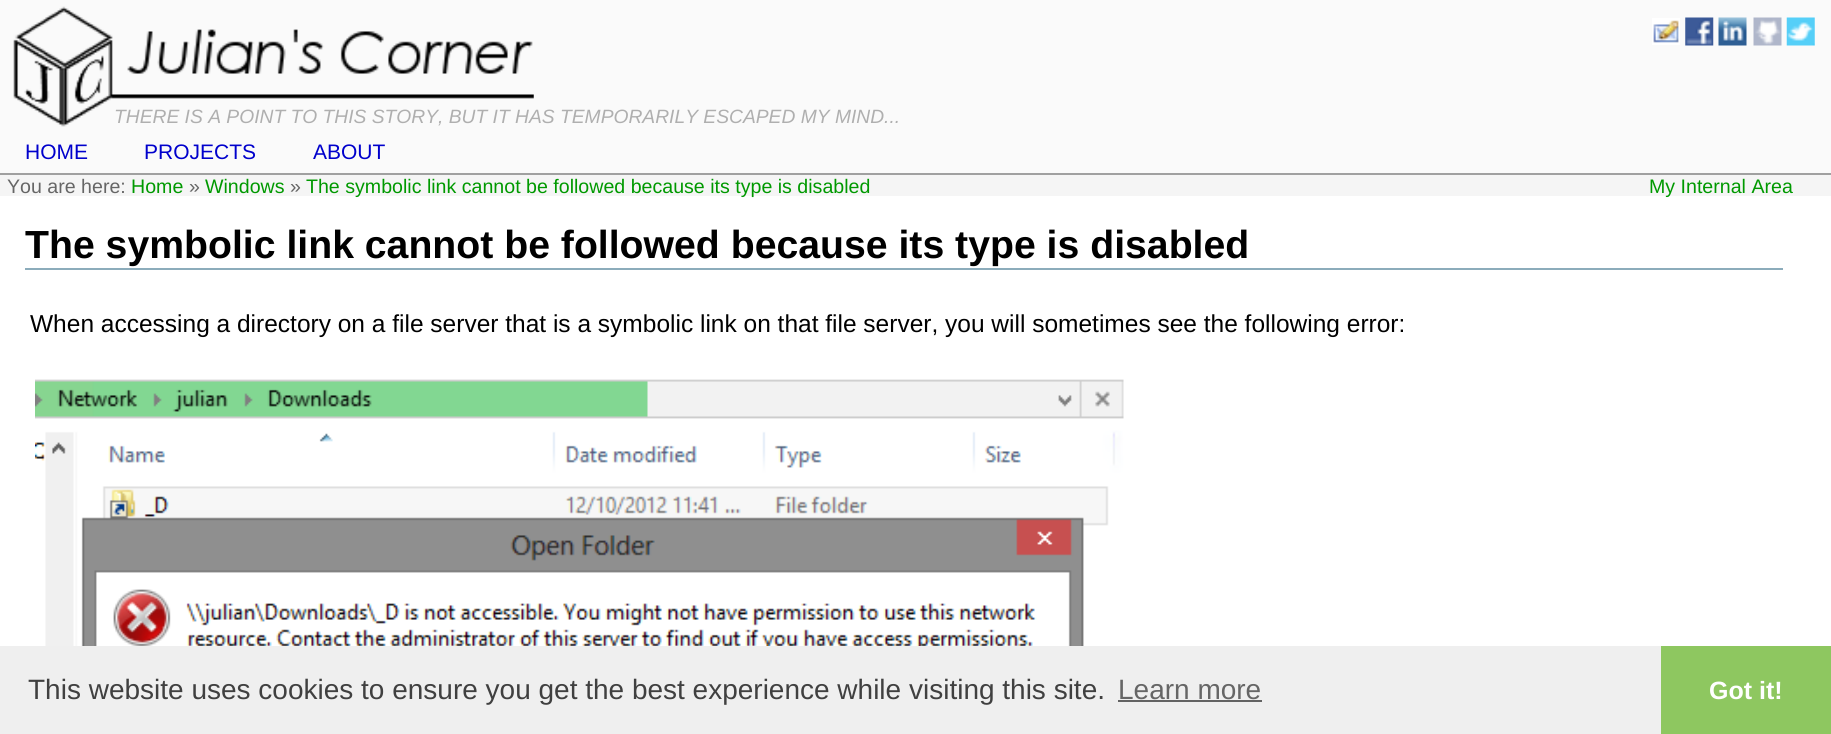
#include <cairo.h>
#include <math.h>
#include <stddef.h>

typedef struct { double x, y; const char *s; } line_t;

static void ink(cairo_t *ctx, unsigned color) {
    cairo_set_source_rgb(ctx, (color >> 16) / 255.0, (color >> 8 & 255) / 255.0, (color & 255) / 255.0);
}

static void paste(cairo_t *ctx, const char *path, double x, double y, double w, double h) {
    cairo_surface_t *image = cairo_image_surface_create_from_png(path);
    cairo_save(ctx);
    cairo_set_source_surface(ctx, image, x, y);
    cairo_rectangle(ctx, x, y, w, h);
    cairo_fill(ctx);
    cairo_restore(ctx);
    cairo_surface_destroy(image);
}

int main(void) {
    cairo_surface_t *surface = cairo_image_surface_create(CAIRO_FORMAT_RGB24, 1831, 734);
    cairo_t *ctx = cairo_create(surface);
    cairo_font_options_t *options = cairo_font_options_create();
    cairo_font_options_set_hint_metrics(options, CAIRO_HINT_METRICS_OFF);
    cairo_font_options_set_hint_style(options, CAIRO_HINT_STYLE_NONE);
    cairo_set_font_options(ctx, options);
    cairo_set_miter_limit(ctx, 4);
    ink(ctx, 0xFFFFFF);
    cairo_paint(ctx);
    ink(ctx, 0xFAFAFA);
    cairo_rectangle(ctx, 0, 0, 1831, 173);
    cairo_fill(ctx);
    paste(ctx, "media/1.png", 13, 6, 521, 121);
    paste(ctx, "media/2.png", 1652, 18, 28, 27);
    paste(ctx, "media/3.png", 1685, 17, 29, 29);
    paste(ctx, "media/4.png", 1718, 17, 29, 29);
    paste(ctx, "media/5.png", 1753, 17, 29, 29);
    paste(ctx, "media/6.png", 1786, 17, 29, 29);
    cairo_select_font_face(ctx, "Liberation Sans", CAIRO_FONT_SLANT_ITALIC, CAIRO_FONT_WEIGHT_NORMAL);
    cairo_set_font_size(ctx, 19.25);
    ink(ctx, 0xAFAFAF);
    cairo_move_to(ctx, 114, 123);
    cairo_show_text(ctx, "THERE IS A POINT TO THIS STORY, BUT IT HAS TEMPORARILY ESCAPED MY MIND...");
    ink(ctx, 0xA0A0A0);
    cairo_rectangle(ctx, 0, 173, 1831, 2);
    cairo_fill(ctx);
    cairo_select_font_face(ctx, "Liberation Sans", CAIRO_FONT_SLANT_NORMAL, CAIRO_FONT_WEIGHT_NORMAL);
    cairo_set_font_size(ctx, 21);
    ink(ctx, 0x0000CC);
    {
        static const line_t items[] = {
            {25, 159, "HOME"},
            {144, 159, "PROJECTS"},
            {313, 159, "ABOUT"},
        };
        for (size_t i = 0; i < sizeof items / sizeof *items; i++) {
            cairo_move_to(ctx, items[i].x, items[i].y);
            cairo_show_text(ctx, items[i].s);
        }
    }
    ink(ctx, 0xF5F5F5);
    cairo_rectangle(ctx, 0, 175, 1831, 21);
    cairo_fill(ctx);
    cairo_set_font_size(ctx, 19.6);
    ink(ctx, 0x666666);
    cairo_move_to(ctx, 7, 193);
    cairo_show_text(ctx, "You are here:");
    ink(ctx, 0x009900);
    cairo_move_to(ctx, 131, 193);
    cairo_show_text(ctx, "Home");
    ink(ctx, 0x666666);
    cairo_move_to(ctx, 189, 193);
    cairo_show_text(ctx, "»");
    ink(ctx, 0x009900);
    cairo_move_to(ctx, 205, 193);
    cairo_show_text(ctx, "Windows");
    ink(ctx, 0x666666);
    cairo_move_to(ctx, 290, 193);
    cairo_show_text(ctx, "»");
    ink(ctx, 0x009900);
    cairo_move_to(ctx, 306, 193);
    cairo_show_text(ctx, "The symbolic link cannot be followed because its type is disabled");
    cairo_move_to(ctx, 1649, 193);
    cairo_show_text(ctx, "My Internal Area");
    ink(ctx, 0x8CACBB);
    cairo_rectangle(ctx, 25, 268, 1758, 2);
    cairo_fill(ctx);
    cairo_select_font_face(ctx, "Liberation Sans", CAIRO_FONT_SLANT_NORMAL, CAIRO_FONT_WEIGHT_BOLD);
    cairo_set_font_size(ctx, 39.2);
    ink(ctx, 0x000000);
    cairo_move_to(ctx, 25, 258);
    cairo_show_text(ctx, "The symbolic link cannot be followed because its type is disabled");
    cairo_select_font_face(ctx, "Liberation Sans", CAIRO_FONT_SLANT_NORMAL, CAIRO_FONT_WEIGHT_NORMAL);
    cairo_set_font_size(ctx, 24.5);
    cairo_move_to(ctx, 30, 332);
    cairo_show_text(ctx, "When accessing a directory on a file server that is a symbolic link on that file server, you will sometimes see the following error:");
    paste(ctx, "media/7.png", 35, 379, 1089, 267);
    ink(ctx, 0xEFEFEF);
    cairo_rectangle(ctx, 0, 646, 1661, 88);
    cairo_fill(ctx);
    cairo_set_font_size(ctx, 28);
    ink(ctx, 0x404040);
    cairo_move_to(ctx, 28, 699);
    cairo_show_text(ctx, "This website uses cookies to ensure you get the best experience while visiting this site.");
    ink(ctx, 0x666666);
    cairo_move_to(ctx, 1118, 699);
    cairo_show_text(ctx, "Learn more");
    ink(ctx, 0x636363);
    cairo_rectangle(ctx, 1118, 700, 144, 2);
    cairo_fill(ctx);
    ink(ctx, 0x8EC760);
    cairo_rectangle(ctx, 1661, 646, 170, 88);
    cairo_fill(ctx);
    cairo_select_font_face(ctx, "Liberation Sans", CAIRO_FONT_SLANT_NORMAL, CAIRO_FONT_WEIGHT_BOLD);
    cairo_set_font_size(ctx, 25);
    ink(ctx, 0xFFFFFF);
    cairo_move_to(ctx, 1709, 699);
    cairo_show_text(ctx, "Got it!");
    cairo_surface_write_to_png(surface, "image.png");
    cairo_font_options_destroy(options);
    cairo_destroy(ctx);
    cairo_surface_destroy(surface);
    return 0;
}
